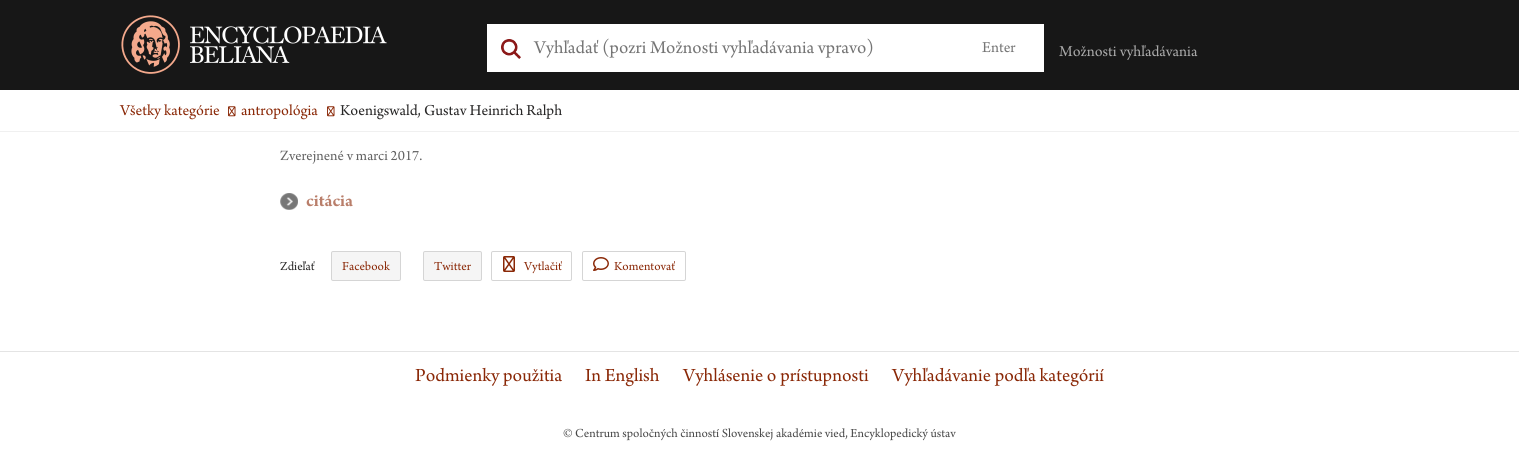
#include <cairo.h>
#include <math.h>
#include <stddef.h>

typedef struct { double x, y; const char *s; } line_t;

static void ink(cairo_t *ctx, unsigned color) {
    cairo_set_source_rgb(ctx, (color >> 16) / 255.0, (color >> 8 & 255) / 255.0, (color & 255) / 255.0);
}

static void round_path(cairo_t *ctx, double x, double y, double w, double h, double r) {
    cairo_new_sub_path(ctx);
    cairo_arc(ctx, x + w - r, y + h - r, r, 0, M_PI / 2);
    cairo_arc(ctx, x + r, y + h - r, r, M_PI / 2, M_PI);
    cairo_arc(ctx, x + r, y + r, r, M_PI, 1.5 * M_PI);
    cairo_arc(ctx, x + w - r, y + r, r, 1.5 * M_PI, 2 * M_PI);
    cairo_close_path(ctx);
}

static void paste(cairo_t *ctx, const char *path, double x, double y, double w, double h) {
    cairo_surface_t *image = cairo_image_surface_create_from_png(path);
    cairo_save(ctx);
    cairo_set_source_surface(ctx, image, x, y);
    cairo_rectangle(ctx, x, y, w, h);
    cairo_fill(ctx);
    cairo_restore(ctx);
    cairo_surface_destroy(image);
}

int main(void) {
    cairo_surface_t *surface = cairo_image_surface_create(CAIRO_FORMAT_RGB24, 1519, 451);
    cairo_t *ctx = cairo_create(surface);
    cairo_font_options_t *options = cairo_font_options_create();
    cairo_font_options_set_hint_metrics(options, CAIRO_HINT_METRICS_OFF);
    cairo_font_options_set_hint_style(options, CAIRO_HINT_STYLE_NONE);
    cairo_set_font_options(ctx, options);
    cairo_set_miter_limit(ctx, 4);
    ink(ctx, 0xFFFFFF);
    cairo_paint(ctx);
    ink(ctx, 0x171717);
    cairo_rectangle(ctx, 0, 0, 1519, 90);
    cairo_fill(ctx);
    paste(ctx, "media/1.png", 121, 15, 266, 59);
    ink(ctx, 0xFFFFFF);
    cairo_rectangle(ctx, 487, 24, 557, 48);
    cairo_fill(ctx);
    paste(ctx, "media/2.png", 501, 39, 20, 20);
    cairo_select_font_face(ctx, "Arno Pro", CAIRO_FONT_SLANT_NORMAL, CAIRO_FONT_WEIGHT_NORMAL);
    cairo_set_font_size(ctx, 19);
    ink(ctx, 0x757575);
    cairo_move_to(ctx, 534, 53);
    cairo_show_text(ctx, "Vyhľadať (pozri Možnosti vyhľadávania vpravo)");
    cairo_set_font_size(ctx, 16);
    cairo_move_to(ctx, 982, 52);
    cairo_show_text(ctx, "Enter");
    ink(ctx, 0xAAAAAA);
    cairo_move_to(ctx, 1059, 56);
    cairo_show_text(ctx, "Možnosti vyhľadávania");
    ink(ctx, 0xF0F0F0);
    cairo_rectangle(ctx, 0, 131, 1519, 1);
    cairo_fill(ctx);
    ink(ctx, 0x8A2807);
    cairo_move_to(ctx, 120, 115);
    cairo_show_text(ctx, "Všetky kategórie");
    paste(ctx, "media/3.png", 228, 106, 8, 11);
    cairo_move_to(ctx, 241, 115);
    cairo_show_text(ctx, "antropológia");
    paste(ctx, "media/3.png", 327, 106, 8, 11);
    ink(ctx, 0x282727);
    cairo_move_to(ctx, 340, 115);
    cairo_show_text(ctx, "Koenigswald, Gustav Heinrich Ralph");
    cairo_set_font_size(ctx, 15);
    ink(ctx, 0x636363);
    cairo_move_to(ctx, 280, 160);
    cairo_show_text(ctx, "Zverejnené v marci 2017.");
    paste(ctx, "media/4.png", 280, 193, 18, 17);
    cairo_select_font_face(ctx, "Arno Pro", CAIRO_FONT_SLANT_NORMAL, CAIRO_FONT_WEIGHT_BOLD);
    cairo_set_font_size(ctx, 18);
    ink(ctx, 0xB97E6A);
    cairo_move_to(ctx, 306, 206);
    cairo_show_text(ctx, "citácia");
    cairo_select_font_face(ctx, "Arno Pro", CAIRO_FONT_SLANT_NORMAL, CAIRO_FONT_WEIGHT_NORMAL);
    cairo_set_font_size(ctx, 12.95);
    ink(ctx, 0x282727);
    cairo_move_to(ctx, 280, 270);
    cairo_show_text(ctx, "Zdieľať");
    ink(ctx, 0xF5F5F5);
    round_path(ctx, 331.5, 251.5, 69, 29, 1.5);
    cairo_fill_preserve(ctx);
    ink(ctx, 0xD5D5D5);
    cairo_set_line_width(ctx, 1);
    cairo_stroke(ctx);
    ink(ctx, 0x8A2807);
    cairo_move_to(ctx, 342, 270);
    cairo_show_text(ctx, "Facebook");
    ink(ctx, 0xF5F5F5);
    round_path(ctx, 423.5, 251.5, 58, 29, 1.5);
    cairo_fill_preserve(ctx);
    ink(ctx, 0xD5D5D5);
    cairo_stroke(ctx);
    ink(ctx, 0x8A2807);
    cairo_move_to(ctx, 434, 270);
    cairo_show_text(ctx, "Twitter");
    round_path(ctx, 491.5, 251.5, 80, 29, 1.5);
    ink(ctx, 0xD5D5D5);
    cairo_stroke(ctx);
    paste(ctx, "media/5.png", 503, 256, 12, 16);
    ink(ctx, 0x8A2807);
    cairo_move_to(ctx, 524, 270);
    cairo_show_text(ctx, "Vytlačiť");
    round_path(ctx, 582.5, 251.5, 103, 29, 1.5);
    ink(ctx, 0xD5D5D5);
    cairo_stroke(ctx);
    paste(ctx, "media/6.png", 593, 257, 16, 14);
    ink(ctx, 0x8A2807);
    cairo_move_to(ctx, 614, 270);
    cairo_show_text(ctx, "Komentovať");
    ink(ctx, 0xE4E4E4);
    cairo_rectangle(ctx, 0, 351, 1519, 1);
    cairo_fill(ctx);
    cairo_set_font_size(ctx, 19.5);
    ink(ctx, 0x8A2807);
    {
        static const line_t items[] = {
            {415, 381, "Podmienky použitia"},
            {585, 381, "In English"},
            {683, 381, "Vyhlásenie o prístupnosti"},
            {892, 381, "Vyhľadávanie podľa kategórií"},
        };
        for (size_t i = 0; i < sizeof items / sizeof *items; i++) {
            cairo_move_to(ctx, items[i].x, items[i].y);
            cairo_show_text(ctx, items[i].s);
        }
    }
    cairo_set_font_size(ctx, 12.95);
    ink(ctx, 0x494949);
    cairo_move_to(ctx, 563, 437);
    cairo_show_text(ctx, "© Centrum spoločných činností Slovenskej akadémie vied, Encyklopedický ústav");
    cairo_surface_write_to_png(surface, "image.png");
    cairo_font_options_destroy(options);
    cairo_destroy(ctx);
    cairo_surface_destroy(surface);
    return 0;
}
